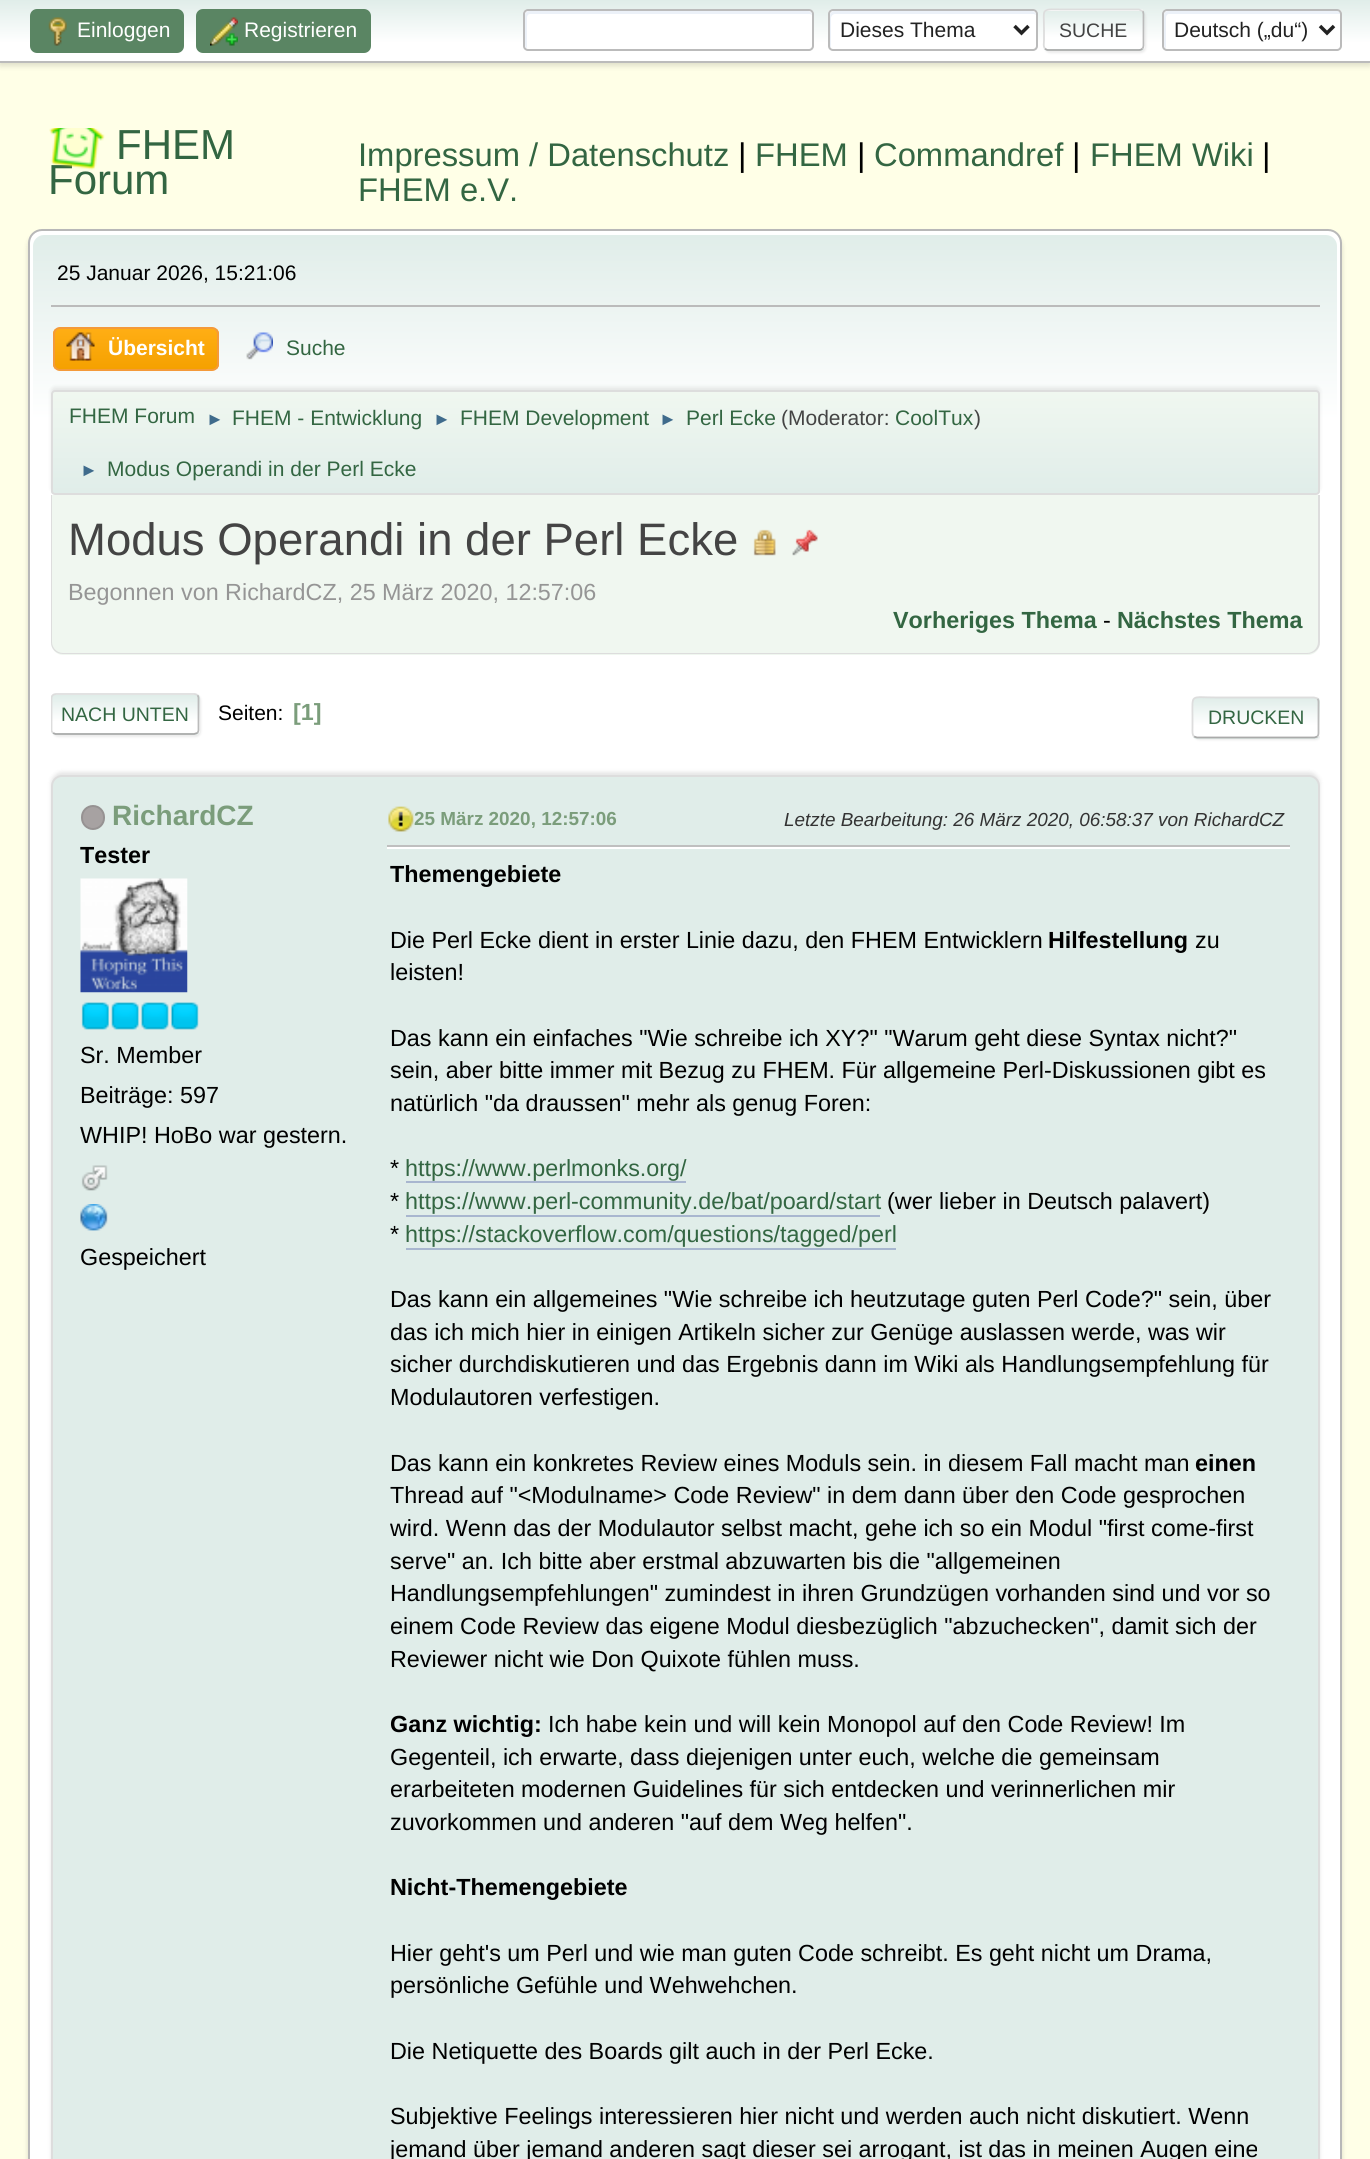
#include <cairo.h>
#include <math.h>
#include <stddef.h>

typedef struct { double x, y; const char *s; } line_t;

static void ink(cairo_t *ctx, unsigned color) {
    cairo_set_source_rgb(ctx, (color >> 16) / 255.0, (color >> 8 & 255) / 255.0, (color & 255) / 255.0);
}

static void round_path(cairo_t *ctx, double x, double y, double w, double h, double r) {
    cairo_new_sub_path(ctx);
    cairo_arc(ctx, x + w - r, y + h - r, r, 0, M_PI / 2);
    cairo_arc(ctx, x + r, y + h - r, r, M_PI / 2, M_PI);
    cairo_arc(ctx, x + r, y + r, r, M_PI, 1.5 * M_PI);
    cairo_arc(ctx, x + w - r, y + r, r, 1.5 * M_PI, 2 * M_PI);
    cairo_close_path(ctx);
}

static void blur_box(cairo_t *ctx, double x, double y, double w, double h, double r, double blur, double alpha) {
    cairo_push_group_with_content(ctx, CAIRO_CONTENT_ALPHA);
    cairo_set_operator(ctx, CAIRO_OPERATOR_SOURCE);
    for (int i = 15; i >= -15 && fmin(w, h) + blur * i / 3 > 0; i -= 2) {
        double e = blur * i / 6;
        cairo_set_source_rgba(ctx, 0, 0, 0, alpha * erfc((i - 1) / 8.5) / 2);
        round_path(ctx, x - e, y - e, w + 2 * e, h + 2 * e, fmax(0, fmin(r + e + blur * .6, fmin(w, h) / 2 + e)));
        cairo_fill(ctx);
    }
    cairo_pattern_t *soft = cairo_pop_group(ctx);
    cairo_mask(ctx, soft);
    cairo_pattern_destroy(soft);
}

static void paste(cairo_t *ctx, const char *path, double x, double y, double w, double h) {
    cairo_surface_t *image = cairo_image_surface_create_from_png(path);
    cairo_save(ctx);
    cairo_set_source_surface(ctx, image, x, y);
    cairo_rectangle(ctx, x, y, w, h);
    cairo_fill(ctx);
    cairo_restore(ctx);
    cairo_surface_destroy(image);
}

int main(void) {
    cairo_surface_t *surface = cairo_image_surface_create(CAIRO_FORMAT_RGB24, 1370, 2159);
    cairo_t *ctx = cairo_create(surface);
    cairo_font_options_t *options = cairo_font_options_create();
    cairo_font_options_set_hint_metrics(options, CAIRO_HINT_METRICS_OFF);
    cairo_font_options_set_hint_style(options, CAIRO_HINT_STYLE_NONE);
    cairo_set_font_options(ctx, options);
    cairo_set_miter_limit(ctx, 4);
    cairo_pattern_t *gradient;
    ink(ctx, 0xFFFFE7);
    cairo_paint(ctx);
    ink(ctx, 0x000000);
    blur_box(ctx, 0, 2, 1370, 63, 0, 3.5, 0.16);
    gradient = cairo_pattern_create_linear(685, 0, 685, 61);
    cairo_pattern_add_color_stop_rgba(gradient, 0, 0.878, 0.929, 0.914, 1);
    cairo_pattern_add_color_stop_rgba(gradient, 0.7, 1, 1, 1, 1);
    cairo_set_source(ctx, gradient);
    cairo_pattern_destroy(gradient);
    cairo_rectangle(ctx, 0, 0, 1370, 61);
    cairo_fill(ctx);
    ink(ctx, 0xBBBBBB);
    cairo_rectangle(ctx, 0, 61, 1370, 2);
    cairo_fill(ctx);
    ink(ctx, 0x5A8563);
    round_path(ctx, 31, 10, 152, 42, 6);
    cairo_fill_preserve(ctx);
    cairo_stroke(ctx);
    paste(ctx, "media/1.png", 48, 17, 19, 29);
    cairo_select_font_face(ctx, "Liberation Sans", CAIRO_FONT_SLANT_NORMAL, CAIRO_FONT_WEIGHT_NORMAL);
    cairo_set_font_size(ctx, 21);
    ink(ctx, 0xFFFFFF);
    cairo_move_to(ctx, 77, 37);
    cairo_show_text(ctx, "Einloggen");
    ink(ctx, 0x5A8563);
    round_path(ctx, 197, 10, 173, 42, 6);
    cairo_fill_preserve(ctx);
    cairo_stroke(ctx);
    paste(ctx, "media/2.png", 210, 17, 28, 29);
    ink(ctx, 0xFFFFFF);
    cairo_move_to(ctx, 244, 37);
    cairo_show_text(ctx, "Registrieren");
    round_path(ctx, 523, 9, 291, 42, 5);
    cairo_fill(ctx);
    ink(ctx, 0xECF1F8);
    cairo_new_path(ctx);
    cairo_move_to(ctx, 530, 14);
    cairo_line_to(ctx, 810, 14);
    cairo_line_to(ctx, 812, 15);
    cairo_curve_to(ctx, 812, 13, 810, 11, 808, 11);
    cairo_line_to(ctx, 529, 11);
    cairo_curve_to(ctx, 527, 11, 525, 13, 525, 15);
    cairo_line_to(ctx, 525, 45);
    cairo_curve_to(ctx, 525, 46, 526, 48, 527, 48);
    cairo_line_to(ctx, 527, 18);
    cairo_curve_to(ctx, 527, 16, 528, 14, 530, 14);
    cairo_close_path(ctx);
    cairo_fill(ctx);
    round_path(ctx, 524, 10, 289, 40, 4);
    ink(ctx, 0xBBBBBB);
    cairo_stroke(ctx);
    ink(ctx, 0xFFFFFF);
    round_path(ctx, 828, 9, 210, 42, 5);
    cairo_fill(ctx);
    ink(ctx, 0xECF1F8);
    cairo_new_path(ctx);
    cairo_move_to(ctx, 835, 14);
    cairo_line_to(ctx, 1034, 14);
    cairo_line_to(ctx, 1036, 15);
    cairo_curve_to(ctx, 1036, 13, 1034, 11, 1032, 11);
    cairo_line_to(ctx, 834, 11);
    cairo_curve_to(ctx, 832, 11, 830, 13, 830, 15);
    cairo_line_to(ctx, 830, 45);
    cairo_curve_to(ctx, 830, 46, 830, 47, 831, 48);
    cairo_line_to(ctx, 831, 18);
    cairo_curve_to(ctx, 831, 16, 833, 14, 835, 14);
    cairo_close_path(ctx);
    cairo_fill(ctx);
    round_path(ctx, 829, 10, 208, 40, 4);
    ink(ctx, 0xBBBBBB);
    cairo_stroke(ctx);
    cairo_new_path(ctx);
    cairo_move_to(ctx, 1014.5, 26);
    cairo_line_to(ctx, 1021.5, 33);
    cairo_line_to(ctx, 1028.5, 26);
    ink(ctx, 0x222222);
    cairo_set_line_width(ctx, 3.5);
    cairo_stroke(ctx);
    cairo_move_to(ctx, 840, 37);
    cairo_show_text(ctx, "Dieses Thema");
    ink(ctx, 0xDDDDDD);
    blur_box(ctx, 1045, 11, 101, 42, 5, 1, 0.57);
    cairo_save(ctx);
    round_path(ctx, 1043, 9, 102, 42, 5);
    cairo_clip(ctx);
    gradient = cairo_pattern_create_linear(1094, -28, 1094, 11);
    cairo_pattern_add_color_stop_rgba(gradient, 0, 0.878, 0.929, 0.914, 1);
    cairo_pattern_add_color_stop_rgba(gradient, 0.7, 1, 1, 1, 1);
    cairo_set_source(ctx, gradient);
    cairo_pattern_destroy(gradient);
    cairo_rectangle(ctx, 1043, 9, 102, 2);
    cairo_fill(ctx);
    gradient = cairo_pattern_create_linear(1094, 10, 1094, 49);
    cairo_pattern_add_color_stop_rgba(gradient, 0, 0.878, 0.929, 0.914, 1);
    cairo_pattern_add_color_stop_rgba(gradient, 0.7, 1, 1, 1, 1);
    cairo_set_source(ctx, gradient);
    cairo_pattern_destroy(gradient);
    cairo_rectangle(ctx, 1043, 11, 102, 38);
    cairo_fill(ctx);
    gradient = cairo_pattern_create_linear(1094, 49, 1094, 88);
    cairo_pattern_add_color_stop_rgba(gradient, 0, 0.878, 0.929, 0.914, 1);
    cairo_pattern_add_color_stop_rgba(gradient, 0.7, 1, 1, 1, 1);
    cairo_set_source(ctx, gradient);
    cairo_pattern_destroy(gradient);
    cairo_rectangle(ctx, 1043, 49, 102, 2);
    cairo_fill(ctx);
    cairo_restore(ctx);
    cairo_new_path(ctx);
    cairo_move_to(ctx, 1142.5, 11);
    cairo_curve_to(ctx, 1143, 11.5, 1143.5, 13, 1143.5, 14);
    cairo_line_to(ctx, 1143.5, 45.5);
    cairo_curve_to(ctx, 1143.5, 46.5, 1143, 48, 1142.5, 48.5);
    ink(ctx, 0xBBBBBB);
    cairo_set_line_width(ctx, 1.8);
    cairo_stroke(ctx);
    cairo_new_path(ctx);
    cairo_move_to(ctx, 1142.5, 48.5);
    cairo_curve_to(ctx, 1141.5, 49.5, 1140.5, 50, 1139, 50);
    cairo_line_to(ctx, 1048, 50);
    cairo_curve_to(ctx, 1047, 50, 1046, 49.5, 1045, 48.5);
    ink(ctx, 0xAAAAAA);
    cairo_stroke(ctx);
    cairo_new_path(ctx);
    cairo_move_to(ctx, 1045, 48.5);
    cairo_curve_to(ctx, 1043, 46.5, 1044, 42.5, 1044, 40);
    cairo_line_to(ctx, 1044, 30);
    cairo_curve_to(ctx, 1044, 7, 1040, 9.5, 1063.5, 9.5);
    cairo_line_to(ctx, 1139, 9.5);
    cairo_line_to(ctx, 1142.5, 11);
    ink(ctx, 0xDDDDDD);
    cairo_stroke(ctx);
    cairo_set_font_size(ctx, 19.5);
    ink(ctx, 0x444444);
    cairo_move_to(ctx, 1059, 37);
    cairo_show_text(ctx, "SUCHE");
    ink(ctx, 0xFFFFFF);
    round_path(ctx, 1162, 9, 180, 42, 5);
    cairo_fill(ctx);
    ink(ctx, 0xECF1F8);
    cairo_new_path(ctx);
    cairo_move_to(ctx, 1169, 14);
    cairo_line_to(ctx, 1339, 14);
    cairo_curve_to(ctx, 1340, 14, 1341, 14, 1341, 15);
    cairo_curve_to(ctx, 1341, 13, 1339, 11, 1337, 11);
    cairo_line_to(ctx, 1168, 11);
    cairo_curve_to(ctx, 1166, 11, 1164, 13, 1164, 15);
    cairo_line_to(ctx, 1164, 45);
    cairo_curve_to(ctx, 1164, 46, 1165, 48, 1166, 48);
    cairo_line_to(ctx, 1166, 18);
    cairo_curve_to(ctx, 1166, 16, 1167, 14, 1169, 14);
    cairo_close_path(ctx);
    cairo_fill(ctx);
    round_path(ctx, 1163, 10, 178, 40, 4);
    ink(ctx, 0xBBBBBB);
    cairo_set_line_width(ctx, 2);
    cairo_stroke(ctx);
    cairo_new_path(ctx);
    cairo_move_to(ctx, 1320, 26);
    cairo_line_to(ctx, 1327, 33);
    cairo_line_to(ctx, 1334, 26);
    ink(ctx, 0x222222);
    cairo_set_line_width(ctx, 3.5);
    cairo_stroke(ctx);
    cairo_set_font_size(ctx, 21);
    cairo_move_to(ctx, 1174, 37);
    cairo_show_text(ctx, "Deutsch („du“)");
    cairo_set_font_size(ctx, 42);
    ink(ctx, 0x336642);
    cairo_move_to(ctx, 48, 194);
    cairo_show_text(ctx, "Forum");
    paste(ctx, "media/3.png", 49, 128, 56, 42);
    cairo_move_to(ctx, 116, 159);
    cairo_show_text(ctx, "FHEM");
    cairo_set_font_size(ctx, 32.75);
    cairo_move_to(ctx, 358, 166);
    cairo_show_text(ctx, "Impressum / Datenschutz");
    ink(ctx, 0x000000);
    cairo_move_to(ctx, 738, 166);
    cairo_show_text(ctx, "|");
    ink(ctx, 0x336642);
    cairo_move_to(ctx, 755, 166);
    cairo_show_text(ctx, "FHEM");
    ink(ctx, 0x000000);
    cairo_move_to(ctx, 857, 166);
    cairo_show_text(ctx, "|");
    ink(ctx, 0x336642);
    cairo_move_to(ctx, 874, 166);
    cairo_show_text(ctx, "Commandref");
    ink(ctx, 0x000000);
    cairo_move_to(ctx, 1072, 166);
    cairo_show_text(ctx, "|");
    ink(ctx, 0x336642);
    cairo_move_to(ctx, 1090, 166);
    cairo_show_text(ctx, "FHEM Wiki");
    ink(ctx, 0x000000);
    cairo_move_to(ctx, 1262, 166);
    cairo_show_text(ctx, "|");
    ink(ctx, 0x336642);
    cairo_move_to(ctx, 358, 201);
    cairo_show_text(ctx, "FHEM e.V.");
    ink(ctx, 0x000000);
    blur_box(ctx, 28, 233, 1314, 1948, 14, 2.5, 0.14);
    ink(ctx, 0xFFFFFF);
    round_path(ctx, 29, 230, 1312, 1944, 13);
    cairo_fill_preserve(ctx);
    ink(ctx, 0xB8B8B8);
    cairo_set_line_width(ctx, 2);
    cairo_stroke(ctx);
    gradient = cairo_pattern_create_linear(685, 234, 685, 499);
    cairo_pattern_add_color_stop_rgba(gradient, 0, 0.878, 0.929, 0.914, 1);
    cairo_pattern_add_color_stop_rgba(gradient, 0.7, 1, 1, 1, 1);
    cairo_set_source(ctx, gradient);
    cairo_pattern_destroy(gradient);
    cairo_new_path(ctx);
    cairo_move_to(ctx, 44, 235);
    cairo_line_to(ctx, 1326, 235);
    cairo_curve_to(ctx, 1332, 235, 1337, 240, 1337, 246);
    cairo_line_to(ctx, 1337, 499);
    cairo_line_to(ctx, 33, 499);
    cairo_line_to(ctx, 33, 246);
    cairo_curve_to(ctx, 33, 240, 38, 235, 44, 235);
    cairo_close_path(ctx);
    cairo_fill(ctx);
    ink(ctx, 0xBBBBBB);
    cairo_rectangle(ctx, 51, 305, 1269, 2);
    cairo_fill(ctx);
    cairo_set_font_size(ctx, 21);
    ink(ctx, 0x000000);
    cairo_move_to(ctx, 57, 280);
    cairo_show_text(ctx, "25 Januar 2026, 15:21:06");
    cairo_save(ctx);
    round_path(ctx, 53, 327, 166, 44, 7);
    cairo_clip(ctx);
    gradient = cairo_pattern_create_linear(136, 329, 136, 369);
    cairo_pattern_add_color_stop_rgba(gradient, 0, 1, 0.682, 0.078, 1);
    cairo_pattern_add_color_stop_rgba(gradient, 1, 0.961, 0.631, 0, 1);
    cairo_set_source(ctx, gradient);
    cairo_pattern_destroy(gradient);
    cairo_rectangle(ctx, 53, 329, 166, 40);
    cairo_fill(ctx);
    cairo_restore(ctx);
    round_path(ctx, 54, 328, 164, 42, 6);
    ink(ctx, 0xF49A3A);
    cairo_stroke(ctx);
    paste(ctx, "media/4.png", 66, 332, 29, 29);
    cairo_select_font_face(ctx, "Liberation Sans", CAIRO_FONT_SLANT_NORMAL, CAIRO_FONT_WEIGHT_BOLD);
    ink(ctx, 0xFFFFFF);
    cairo_move_to(ctx, 108, 355);
    cairo_show_text(ctx, "Übersicht");
    paste(ctx, "media/5.png", 246, 332, 27, 28);
    cairo_select_font_face(ctx, "Liberation Sans", CAIRO_FONT_SLANT_NORMAL, CAIRO_FONT_WEIGHT_NORMAL);
    ink(ctx, 0x336642);
    cairo_move_to(ctx, 286, 355);
    cairo_show_text(ctx, "Suche");
    ink(ctx, 0x000000);
    blur_box(ctx, 51, 387, 1269, 105, 4, 2, 0.08);
    cairo_save(ctx);
    round_path(ctx, 51, 390, 1269, 105, 4);
    cairo_clip(ctx);
    gradient = cairo_pattern_create_linear(685, 392, 685, 494);
    cairo_pattern_add_color_stop_rgba(gradient, 0, 0.941, 0.969, 0.941, 1);
    cairo_pattern_add_color_stop_rgba(gradient, 1, 0.878, 0.929, 0.914, 1);
    cairo_set_source(ctx, gradient);
    cairo_pattern_destroy(gradient);
    cairo_rectangle(ctx, 51, 392, 1269, 102);
    cairo_fill(ctx);
    cairo_restore(ctx);
    round_path(ctx, 52, 391, 1267, 103, 3);
    ink(ctx, 0xDDDDDD);
    cairo_stroke(ctx);
    ink(ctx, 0x336642);
    cairo_move_to(ctx, 69, 423);
    cairo_show_text(ctx, "FHEM Forum");
    cairo_set_font_size(ctx, 18);
    ink(ctx, 0x3F6B8C);
    cairo_move_to(ctx, 206, 425);
    cairo_show_text(ctx, "►");
    cairo_set_font_size(ctx, 21);
    ink(ctx, 0x336642);
    cairo_move_to(ctx, 232, 425);
    cairo_show_text(ctx, "FHEM - Entwicklung");
    cairo_set_font_size(ctx, 18);
    ink(ctx, 0x3F6B8C);
    cairo_move_to(ctx, 433, 425);
    cairo_show_text(ctx, "►");
    cairo_set_font_size(ctx, 21);
    ink(ctx, 0x336642);
    cairo_move_to(ctx, 460, 425);
    cairo_show_text(ctx, "FHEM Development");
    cairo_set_font_size(ctx, 18);
    ink(ctx, 0x3F6B8C);
    cairo_move_to(ctx, 659, 425);
    cairo_show_text(ctx, "►");
    cairo_set_font_size(ctx, 21);
    ink(ctx, 0x336642);
    cairo_move_to(ctx, 686, 425);
    cairo_show_text(ctx, "Perl Ecke");
    ink(ctx, 0x444444);
    cairo_move_to(ctx, 781, 425);
    cairo_show_text(ctx, "(Moderator:");
    ink(ctx, 0x336642);
    cairo_move_to(ctx, 895, 425);
    cairo_show_text(ctx, "CoolTux");
    ink(ctx, 0x444444);
    cairo_move_to(ctx, 974, 425);
    cairo_show_text(ctx, ")");
    cairo_set_font_size(ctx, 18);
    ink(ctx, 0x3F6B8C);
    cairo_move_to(ctx, 80, 476);
    cairo_show_text(ctx, "►");
    cairo_set_font_size(ctx, 21);
    ink(ctx, 0x336642);
    cairo_move_to(ctx, 107, 476);
    cairo_show_text(ctx, "Modus Operandi in der Perl Ecke");
    ink(ctx, 0xF0F7F0);
    cairo_new_path(ctx);
    cairo_move_to(ctx, 51, 495);
    cairo_line_to(ctx, 1320, 495);
    cairo_line_to(ctx, 1320, 643);
    cairo_curve_to(ctx, 1320, 649.5, 1314.5, 655, 1308, 655);
    cairo_line_to(ctx, 63, 655);
    cairo_curve_to(ctx, 56.5, 655, 51, 649.5, 51, 643);
    cairo_close_path(ctx);
    cairo_fill(ctx);
    ink(ctx, 0xDDDDDD);
    cairo_set_fill_rule(ctx, CAIRO_FILL_RULE_EVEN_ODD);
    cairo_new_path(ctx);
    cairo_move_to(ctx, 51, 495);
    cairo_line_to(ctx, 1320, 495);
    cairo_line_to(ctx, 1320, 642);
    cairo_curve_to(ctx, 1320, 649, 1314, 654, 1307, 654);
    cairo_line_to(ctx, 63, 654);
    cairo_curve_to(ctx, 56, 654, 51, 649, 51, 642);
    cairo_close_path(ctx);
    cairo_move_to(ctx, 52, 495);
    cairo_line_to(ctx, 1318, 495);
    cairo_line_to(ctx, 1318, 642);
    cairo_curve_to(ctx, 1318, 648, 1313, 653, 1307, 653);
    cairo_line_to(ctx, 63, 653);
    cairo_curve_to(ctx, 57, 653, 52, 648, 52, 642);
    cairo_close_path(ctx);
    cairo_fill(ctx);
    cairo_set_font_size(ctx, 45.5);
    ink(ctx, 0x444444);
    cairo_move_to(ctx, 68, 555);
    cairo_show_text(ctx, "Modus Operandi in der Perl Ecke");
    paste(ctx, "media/6.png", 753, 529, 23, 27);
    paste(ctx, "media/7.png", 792, 529, 26, 27);
    cairo_set_font_size(ctx, 23.35);
    ink(ctx, 0x959595);
    cairo_move_to(ctx, 68, 600);
    cairo_show_text(ctx, "Begonnen von RichardCZ, 25 März 2020, 12:57:06");
    cairo_select_font_face(ctx, "Liberation Sans", CAIRO_FONT_SLANT_NORMAL, CAIRO_FONT_WEIGHT_BOLD);
    ink(ctx, 0x336642);
    cairo_move_to(ctx, 893, 628);
    cairo_show_text(ctx, "Vorheriges Thema");
    cairo_select_font_face(ctx, "Liberation Sans", CAIRO_FONT_SLANT_NORMAL, CAIRO_FONT_WEIGHT_NORMAL);
    ink(ctx, 0x000000);
    cairo_move_to(ctx, 1103, 628);
    cairo_show_text(ctx, "-");
    cairo_select_font_face(ctx, "Liberation Sans", CAIRO_FONT_SLANT_NORMAL, CAIRO_FONT_WEIGHT_BOLD);
    ink(ctx, 0x336642);
    cairo_move_to(ctx, 1117, 628);
    cairo_show_text(ctx, "Nächstes Thema");
    ink(ctx, 0xDDDDDD);
    blur_box(ctx, 53, 695, 148, 42, 5, 1, 0.57);
    ink(ctx, 0xFFFFFF);
    round_path(ctx, 51, 693, 149, 42, 5);
    cairo_fill(ctx);
    cairo_save(ctx);
    cairo_set_fill_rule(ctx, CAIRO_FILL_RULE_WINDING);
    round_path(ctx, 51, 693, 149, 42, 5);
    cairo_clip(ctx);
    gradient = cairo_pattern_create_linear(125, 695, 125, 733);
    cairo_pattern_add_color_stop_rgba(gradient, 0, 0.878, 0.929, 0.914, 1);
    cairo_pattern_add_color_stop_rgba(gradient, 0.7, 1, 1, 1, 1);
    cairo_set_source(ctx, gradient);
    cairo_pattern_destroy(gradient);
    cairo_rectangle(ctx, 51, 695, 149, 38);
    cairo_fill(ctx);
    gradient = cairo_pattern_create_linear(125, 733, 125, 772);
    cairo_pattern_add_color_stop_rgba(gradient, 0, 0.878, 0.929, 0.914, 1);
    cairo_pattern_add_color_stop_rgba(gradient, 0.7, 1, 1, 1, 1);
    cairo_set_source(ctx, gradient);
    cairo_pattern_destroy(gradient);
    cairo_rectangle(ctx, 51, 733, 149, 2);
    cairo_fill(ctx);
    cairo_restore(ctx);
    cairo_new_path(ctx);
    cairo_move_to(ctx, 197.5, 695);
    cairo_curve_to(ctx, 198, 696, 198.5, 697, 198.5, 698);
    cairo_line_to(ctx, 198.5, 730);
    cairo_curve_to(ctx, 198.5, 731, 198, 732, 197.5, 733);
    ink(ctx, 0xBBBBBB);
    cairo_set_line_width(ctx, 1.8);
    cairo_stroke(ctx);
    cairo_new_path(ctx);
    cairo_move_to(ctx, 197.5, 733);
    cairo_line_to(ctx, 194, 734);
    cairo_line_to(ctx, 55.5, 734);
    cairo_line_to(ctx, 53, 733);
    ink(ctx, 0xAAAAAA);
    cairo_stroke(ctx);
    cairo_save(ctx);
    cairo_set_fill_rule(ctx, CAIRO_FILL_RULE_WINDING);
    cairo_rectangle(ctx, 51, 681, 1269, 73);
    cairo_clip(ctx);
    cairo_new_path(ctx);
    cairo_move_to(ctx, 53, 733);
    cairo_curve_to(ctx, 52, 732, 51.5, 731, 51.5, 730);
    cairo_line_to(ctx, 51.5, 698);
    cairo_curve_to(ctx, 51.5, 697, 52, 696, 53, 695);
    cairo_curve_to(ctx, 53.5, 694.5, 55, 694, 56, 694);
    cairo_line_to(ctx, 194, 694);
    cairo_curve_to(ctx, 195.5, 694, 196.5, 694.5, 197.5, 695);
    ink(ctx, 0xDDDDDD);
    cairo_stroke(ctx);
    cairo_restore(ctx);
    cairo_select_font_face(ctx, "Liberation Sans", CAIRO_FONT_SLANT_NORMAL, CAIRO_FONT_WEIGHT_NORMAL);
    cairo_set_font_size(ctx, 19.5);
    ink(ctx, 0x336642);
    cairo_move_to(ctx, 61, 721);
    cairo_show_text(ctx, "NACH UNTEN");
    cairo_set_font_size(ctx, 21);
    ink(ctx, 0x000000);
    cairo_move_to(ctx, 218, 720);
    cairo_show_text(ctx, "Seiten:");
    cairo_select_font_face(ctx, "Liberation Sans", CAIRO_FONT_SLANT_NORMAL, CAIRO_FONT_WEIGHT_BOLD);
    cairo_set_font_size(ctx, 23.35);
    ink(ctx, 0x7B9D7B);
    cairo_move_to(ctx, 293, 720);
    cairo_show_text(ctx, "[1]");
    cairo_save(ctx);
    cairo_set_fill_rule(ctx, CAIRO_FILL_RULE_WINDING);
    cairo_rectangle(ctx, 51, 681, 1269, 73);
    cairo_clip(ctx);
    ink(ctx, 0xDDDDDD);
    blur_box(ctx, 1194, 698, 127, 42, 5, 1, 0.57);
    cairo_restore(ctx);
    cairo_save(ctx);
    cairo_set_fill_rule(ctx, CAIRO_FILL_RULE_WINDING);
    round_path(ctx, 1192, 697, 128, 42, 5);
    cairo_clip(ctx);
    gradient = cairo_pattern_create_linear(1256, 698, 1256, 737);
    cairo_pattern_add_color_stop_rgba(gradient, 0, 0.878, 0.929, 0.914, 1);
    cairo_pattern_add_color_stop_rgba(gradient, 0.7, 1, 1, 1, 1);
    cairo_set_source(ctx, gradient);
    cairo_pattern_destroy(gradient);
    cairo_rectangle(ctx, 1192, 698, 128, 39);
    cairo_fill(ctx);
    gradient = cairo_pattern_create_linear(1256, 737, 1256, 775);
    cairo_pattern_add_color_stop_rgba(gradient, 0, 0.878, 0.929, 0.914, 1);
    cairo_pattern_add_color_stop_rgba(gradient, 0.7, 1, 1, 1, 1);
    cairo_set_source(ctx, gradient);
    cairo_pattern_destroy(gradient);
    cairo_rectangle(ctx, 1192, 737, 128, 2);
    cairo_fill(ctx);
    cairo_restore(ctx);
    cairo_new_path(ctx);
    cairo_move_to(ctx, 1317.5, 698.5);
    cairo_curve_to(ctx, 1318, 699.5, 1318.5, 700.5, 1318.5, 702);
    cairo_line_to(ctx, 1318.5, 733);
    cairo_curve_to(ctx, 1318.5, 734.5, 1318, 735.5, 1317.5, 736.5);
    ink(ctx, 0xBBBBBB);
    cairo_stroke(ctx);
    cairo_new_path(ctx);
    cairo_move_to(ctx, 1317.5, 736.5);
    cairo_line_to(ctx, 1314.5, 737.5);
    cairo_line_to(ctx, 1216.5, 737.5);
    cairo_line_to(ctx, 1197, 737.5);
    cairo_line_to(ctx, 1194, 736.5);
    ink(ctx, 0xAAAAAA);
    cairo_stroke(ctx);
    cairo_new_path(ctx);
    cairo_move_to(ctx, 1194, 736.5);
    cairo_curve_to(ctx, 1192, 734.5, 1192.5, 730.5, 1192.5, 728);
    cairo_line_to(ctx, 1192.5, 717.5);
    cairo_curve_to(ctx, 1192.5, 693, 1189.5, 697.5, 1216.5, 697.5);
    cairo_line_to(ctx, 1314, 697.5);
    cairo_line_to(ctx, 1317.5, 698.5);
    ink(ctx, 0xDDDDDD);
    cairo_stroke(ctx);
    cairo_select_font_face(ctx, "Liberation Sans", CAIRO_FONT_SLANT_NORMAL, CAIRO_FONT_WEIGHT_NORMAL);
    cairo_set_font_size(ctx, 19.5);
    ink(ctx, 0x336642);
    cairo_move_to(ctx, 1208, 724);
    cairo_show_text(ctx, "DRUCKEN");
    ink(ctx, 0x000000);
    blur_box(ctx, 51, 772, 1269, 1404, 11, 2, 0.1);
    ink(ctx, 0xE0EDE9);
    round_path(ctx, 52, 776, 1267, 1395, 10);
    cairo_fill_preserve(ctx);
    ink(ctx, 0xDDDDDD);
    cairo_set_line_width(ctx, 2);
    cairo_stroke(ctx);
    ink(ctx, 0xA7A2A2);
    round_path(ctx, 82, 806, 22, 23, 11);
    cairo_fill_preserve(ctx);
    ink(ctx, 0x969292);
    cairo_stroke(ctx);
    cairo_select_font_face(ctx, "Liberation Sans", CAIRO_FONT_SLANT_NORMAL, CAIRO_FONT_WEIGHT_BOLD);
    cairo_set_font_size(ctx, 28);
    ink(ctx, 0x7B9D7B);
    cairo_move_to(ctx, 112, 825);
    cairo_show_text(ctx, "RichardCZ");
    cairo_set_font_size(ctx, 23.35);
    ink(ctx, 0x000000);
    cairo_move_to(ctx, 80, 863);
    cairo_show_text(ctx, "Tester");
    paste(ctx, "media/8.png", 80, 878, 108, 115);
    paste(ctx, "media/9.png", 81, 1002, 28, 28);
    paste(ctx, "media/10.png", 111, 1002, 28, 28);
    paste(ctx, "media/11.png", 141, 1002, 28, 28);
    paste(ctx, "media/12.png", 171, 1002, 28, 28);
    cairo_select_font_face(ctx, "Liberation Sans", CAIRO_FONT_SLANT_NORMAL, CAIRO_FONT_WEIGHT_NORMAL);
    {
        static const line_t items[] = {
            {80, 1063, "Sr. Member"},
            {80, 1103, "Beiträge: 597"},
            {80, 1143, "WHIP! HoBo war gestern."},
        };
        for (size_t i = 0; i < sizeof items / sizeof *items; i++) {
            cairo_move_to(ctx, items[i].x, items[i].y);
            cairo_show_text(ctx, items[i].s);
        }
    }
    paste(ctx, "media/13.png", 81, 1165, 27, 26);
    paste(ctx, "media/14.png", 80, 1204, 28, 27);
    cairo_move_to(ctx, 80, 1265);
    cairo_show_text(ctx, "Gespeichert");
    paste(ctx, "media/15.png", 388, 806, 26, 26);
    cairo_select_font_face(ctx, "Liberation Sans", CAIRO_FONT_SLANT_NORMAL, CAIRO_FONT_WEIGHT_BOLD);
    cairo_set_font_size(ctx, 18.9);
    ink(ctx, 0x7B9D7B);
    cairo_move_to(ctx, 414, 825);
    cairo_show_text(ctx, "25 März 2020, 12:57:06");
    cairo_select_font_face(ctx, "Liberation Sans", CAIRO_FONT_SLANT_ITALIC, CAIRO_FONT_WEIGHT_NORMAL);
    ink(ctx, 0x333333);
    cairo_move_to(ctx, 784, 826);
    cairo_show_text(ctx, "Letzte Bearbeitung: 26 März 2020, 06:58:37 von RichardCZ");
    ink(ctx, 0xFFFFFF);
    cairo_rectangle(ctx, 387, 847, 903, 2);
    cairo_fill(ctx);
    ink(ctx, 0xBFBFBF);
    cairo_rectangle(ctx, 387, 845, 903, 2);
    cairo_fill(ctx);
    cairo_select_font_face(ctx, "Liberation Sans", CAIRO_FONT_SLANT_NORMAL, CAIRO_FONT_WEIGHT_BOLD);
    cairo_set_font_size(ctx, 23.35);
    ink(ctx, 0x000000);
    cairo_move_to(ctx, 390, 882);
    cairo_show_text(ctx, "Themengebiete");
    cairo_select_font_face(ctx, "Liberation Sans", CAIRO_FONT_SLANT_NORMAL, CAIRO_FONT_WEIGHT_NORMAL);
    cairo_move_to(ctx, 390, 948);
    cairo_show_text(ctx, "Die Perl Ecke dient in erster Linie dazu, den FHEM Entwicklern");
    cairo_select_font_face(ctx, "Liberation Sans", CAIRO_FONT_SLANT_NORMAL, CAIRO_FONT_WEIGHT_BOLD);
    cairo_move_to(ctx, 1048, 948);
    cairo_show_text(ctx, "Hilfestellung");
    cairo_select_font_face(ctx, "Liberation Sans", CAIRO_FONT_SLANT_NORMAL, CAIRO_FONT_WEIGHT_NORMAL);
    {
        static const line_t items[] = {
            {1195, 948, "zu"},
            {390, 980, "leisten!"},
            {390, 1046, "Das kann ein einfaches \"Wie schreibe ich XY?\" \"Warum geht diese Syntax nicht?\""},
            {390, 1078, "sein, aber bitte immer mit Bezug zu FHEM. Für allgemeine Perl-Diskussionen gibt es"},
            {390, 1111, "natürlich \"da draussen\" mehr als genug Foren:"},
            {390, 1176, "*"},
        };
        for (size_t i = 0; i < sizeof items / sizeof *items; i++) {
            cairo_move_to(ctx, items[i].x, items[i].y);
            cairo_show_text(ctx, items[i].s);
        }
    }
    ink(ctx, 0x336642);
    cairo_move_to(ctx, 405, 1176);
    cairo_show_text(ctx, "https://www.perlmonks.org/");
    ink(ctx, 0xA8B6CF);
    cairo_rectangle(ctx, 406, 1181, 280, 2);
    cairo_fill(ctx);
    ink(ctx, 0x000000);
    cairo_move_to(ctx, 390, 1209);
    cairo_show_text(ctx, "*");
    ink(ctx, 0x336642);
    cairo_move_to(ctx, 405, 1209);
    cairo_show_text(ctx, "https://www.perl-community.de/bat/poard/start");
    ink(ctx, 0xA8B6CF);
    cairo_rectangle(ctx, 406, 1215, 474, 2);
    cairo_fill(ctx);
    ink(ctx, 0x000000);
    cairo_move_to(ctx, 887, 1209);
    cairo_show_text(ctx, "(wer lieber in Deutsch palavert)");
    cairo_move_to(ctx, 390, 1242);
    cairo_show_text(ctx, "*");
    ink(ctx, 0x336642);
    cairo_move_to(ctx, 405, 1242);
    cairo_show_text(ctx, "https://stackoverflow.com/questions/tagged/perl");
    ink(ctx, 0xA8B6CF);
    cairo_rectangle(ctx, 406, 1248, 490, 2);
    cairo_fill(ctx);
    ink(ctx, 0x000000);
    {
        static const line_t items[] = {
            {390, 1307, "Das kann ein allgemeines \"Wie schreibe ich heutzutage guten Perl Code?\" sein, über"},
            {390, 1340, "das ich mich hier in einigen Artikeln sicher zur Genüge auslassen werde, was wir"},
            {390, 1372, "sicher durchdiskutieren und das Ergebnis dann im Wiki als Handlungsempfehlung für"},
            {390, 1405, "Modulautoren verfestigen."},
            {390, 1471, "Das kann ein konkretes Review eines Moduls sein. in diesem Fall macht man"},
        };
        for (size_t i = 0; i < sizeof items / sizeof *items; i++) {
            cairo_move_to(ctx, items[i].x, items[i].y);
            cairo_show_text(ctx, items[i].s);
        }
    }
    cairo_select_font_face(ctx, "Liberation Sans", CAIRO_FONT_SLANT_NORMAL, CAIRO_FONT_WEIGHT_BOLD);
    cairo_move_to(ctx, 1195, 1471);
    cairo_show_text(ctx, "einen");
    cairo_select_font_face(ctx, "Liberation Sans", CAIRO_FONT_SLANT_NORMAL, CAIRO_FONT_WEIGHT_NORMAL);
    {
        static const line_t items[] = {
            {390, 1503, "Thread auf \"<Modulname> Code Review\" in dem dann über den Code gesprochen"},
            {390, 1536, "wird. Wenn das der Modulautor selbst macht, gehe ich so ein Modul \"first come-first"},
            {390, 1569, "serve\" an. Ich bitte aber erstmal abzuwarten bis die \"allgemeinen"},
            {390, 1601, "Handlungsempfehlungen\" zumindest in ihren Grundzügen vorhanden sind und vor so"},
            {390, 1634, "einem Code Review das eigene Modul diesbezüglich \"abzuchecken\", damit sich der"},
            {390, 1667, "Reviewer nicht wie Don Quixote fühlen muss."},
        };
        for (size_t i = 0; i < sizeof items / sizeof *items; i++) {
            cairo_move_to(ctx, items[i].x, items[i].y);
            cairo_show_text(ctx, items[i].s);
        }
    }
    cairo_select_font_face(ctx, "Liberation Sans", CAIRO_FONT_SLANT_NORMAL, CAIRO_FONT_WEIGHT_BOLD);
    cairo_move_to(ctx, 390, 1732);
    cairo_show_text(ctx, "Ganz wichtig:");
    cairo_select_font_face(ctx, "Liberation Sans", CAIRO_FONT_SLANT_NORMAL, CAIRO_FONT_WEIGHT_NORMAL);
    {
        static const line_t items[] = {
            {548, 1732, "Ich habe kein und will kein Monopol auf den Code Review! Im"},
            {390, 1765, "Gegenteil, ich erwarte, dass diejenigen unter euch, welche die gemeinsam"},
            {390, 1797, "erarbeiteten modernen Guidelines für sich entdecken und verinnerlichen mir"},
            {390, 1830, "zuvorkommen und anderen \"auf dem Weg helfen\"."},
        };
        for (size_t i = 0; i < sizeof items / sizeof *items; i++) {
            cairo_move_to(ctx, items[i].x, items[i].y);
            cairo_show_text(ctx, items[i].s);
        }
    }
    cairo_select_font_face(ctx, "Liberation Sans", CAIRO_FONT_SLANT_NORMAL, CAIRO_FONT_WEIGHT_BOLD);
    cairo_move_to(ctx, 390, 1895);
    cairo_show_text(ctx, "Nicht-Themengebiete");
    cairo_select_font_face(ctx, "Liberation Sans", CAIRO_FONT_SLANT_NORMAL, CAIRO_FONT_WEIGHT_NORMAL);
    {
        static const line_t items[] = {
            {390, 1961, "Hier geht's um Perl und wie man guten Code schreibt. Es geht nicht um Drama,"},
            {390, 1993, "persönliche Gefühle und Wehwehchen."},
            {390, 2059, "Die Netiquette des Boards gilt auch in der Perl Ecke."},
            {390, 2124, "Subjektive Feelings interessieren hier nicht und werden auch nicht diskutiert. Wenn"},
            {390, 2157, "jemand über jemand anderen sagt dieser sei arrogant, ist das in meinen Augen eine"},
        };
        for (size_t i = 0; i < sizeof items / sizeof *items; i++) {
            cairo_move_to(ctx, items[i].x, items[i].y);
            cairo_show_text(ctx, items[i].s);
        }
    }
    cairo_surface_write_to_png(surface, "image.png");
    cairo_font_options_destroy(options);
    cairo_destroy(ctx);
    cairo_surface_destroy(surface);
    return 0;
}
